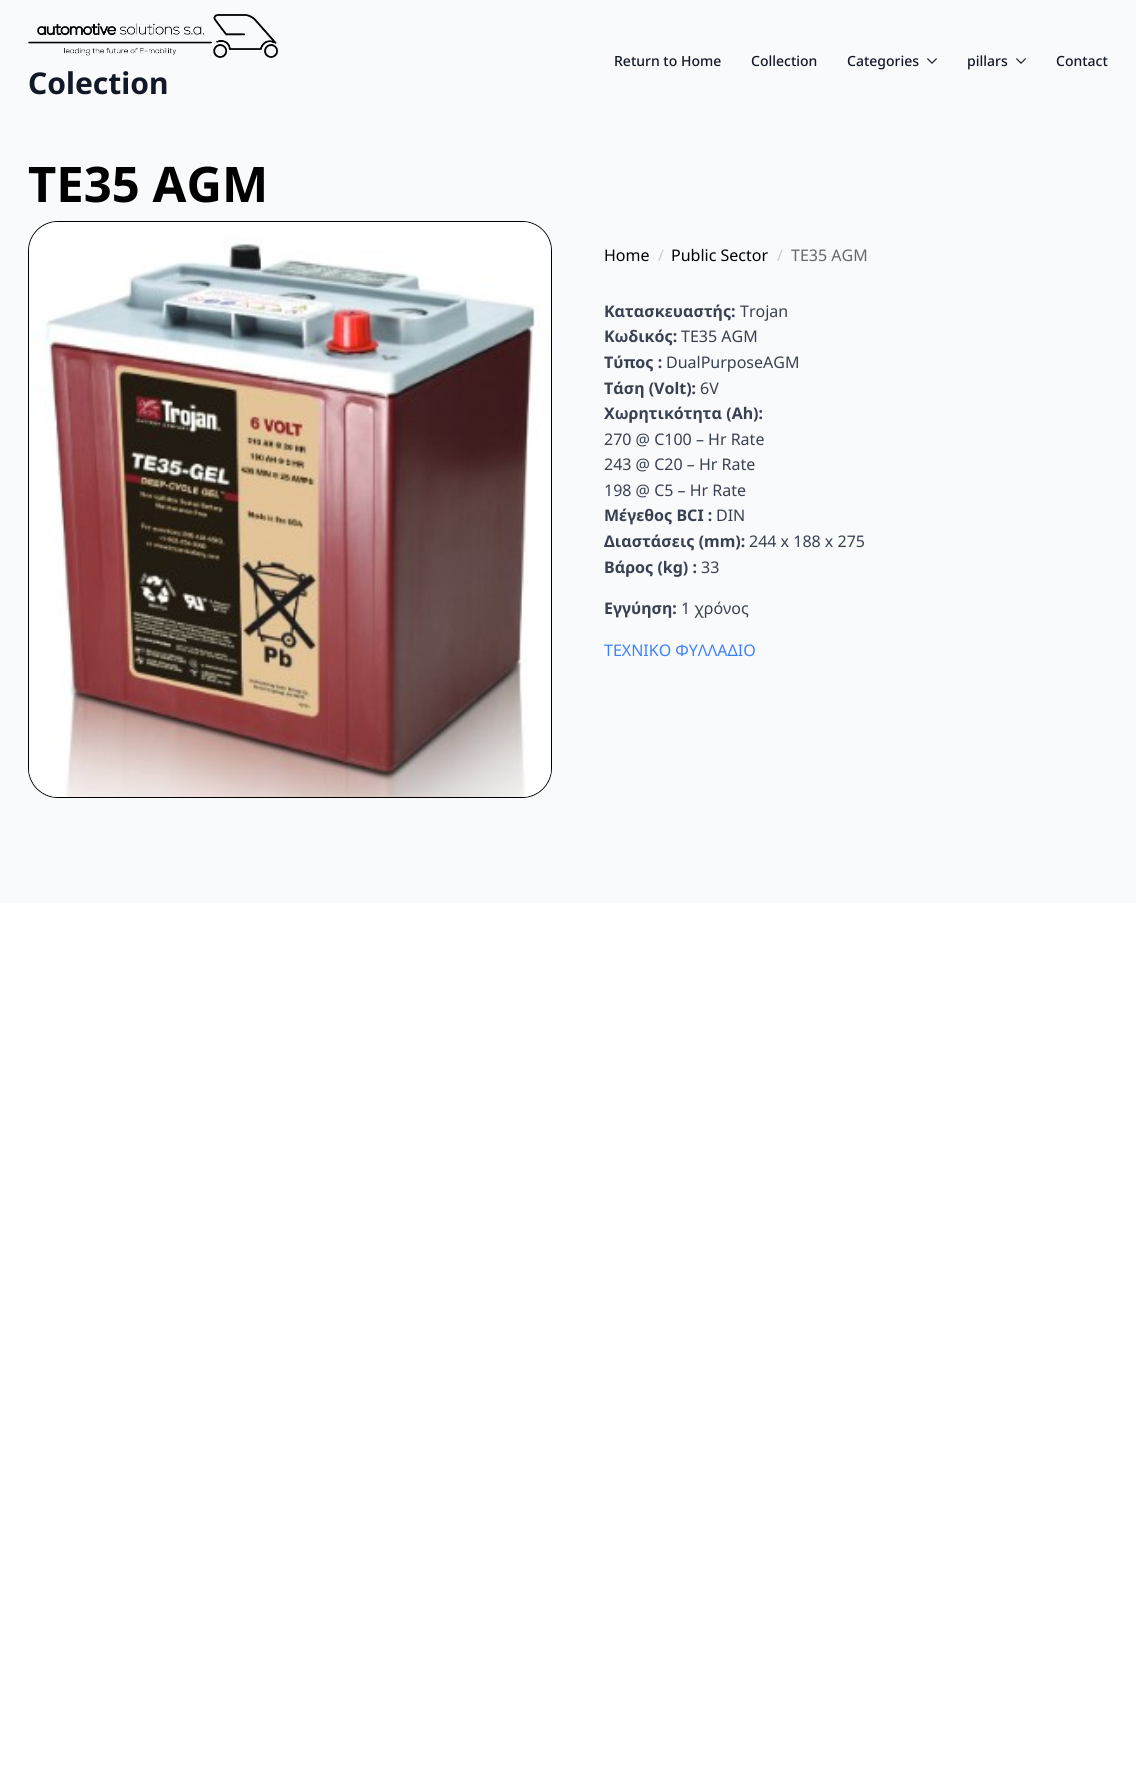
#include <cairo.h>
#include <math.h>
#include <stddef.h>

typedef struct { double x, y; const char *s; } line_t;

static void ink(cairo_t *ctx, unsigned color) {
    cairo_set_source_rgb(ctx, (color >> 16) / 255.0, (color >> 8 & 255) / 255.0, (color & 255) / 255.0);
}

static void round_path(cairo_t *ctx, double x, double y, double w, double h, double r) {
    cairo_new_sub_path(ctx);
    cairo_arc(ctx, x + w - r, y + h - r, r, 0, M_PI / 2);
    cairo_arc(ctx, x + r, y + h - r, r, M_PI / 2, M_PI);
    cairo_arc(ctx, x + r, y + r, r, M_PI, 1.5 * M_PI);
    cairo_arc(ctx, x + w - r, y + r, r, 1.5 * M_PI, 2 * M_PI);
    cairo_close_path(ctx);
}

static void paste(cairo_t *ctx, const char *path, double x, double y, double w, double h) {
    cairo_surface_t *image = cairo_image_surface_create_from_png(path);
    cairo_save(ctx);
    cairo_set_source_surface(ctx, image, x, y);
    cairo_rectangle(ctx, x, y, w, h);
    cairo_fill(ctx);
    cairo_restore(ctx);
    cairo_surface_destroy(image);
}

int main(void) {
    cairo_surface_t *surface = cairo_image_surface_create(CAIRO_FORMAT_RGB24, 1136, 1770);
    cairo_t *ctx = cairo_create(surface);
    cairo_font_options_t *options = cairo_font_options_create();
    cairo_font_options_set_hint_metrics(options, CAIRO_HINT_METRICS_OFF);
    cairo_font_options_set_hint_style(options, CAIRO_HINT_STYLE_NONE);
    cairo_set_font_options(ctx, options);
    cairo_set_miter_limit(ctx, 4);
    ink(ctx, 0xFFFFFF);
    cairo_paint(ctx);
    ink(ctx, 0xF9FAFB);
    cairo_rectangle(ctx, 0, 0, 1136, 903);
    cairo_fill(ctx);
    cairo_select_font_face(ctx, "Noto Sans Medium", CAIRO_FONT_SLANT_NORMAL, CAIRO_FONT_WEIGHT_NORMAL);
    cairo_set_font_size(ctx, 14);
    ink(ctx, 0x111827);
    {
        static const line_t items[] = {
            {614, 66, "Return to Home"},
            {751, 66, "Collection"},
            {847, 66, "Categories"},
        };
        for (size_t i = 0; i < sizeof items / sizeof *items; i++) {
            cairo_move_to(ctx, items[i].x, items[i].y);
            cairo_show_text(ctx, items[i].s);
        }
    }
    paste(ctx, "media/1.png", 927, 58, 10, 6);
    cairo_move_to(ctx, 967, 66);
    cairo_show_text(ctx, "pillars");
    paste(ctx, "media/1.png", 1016, 58, 10, 6);
    cairo_move_to(ctx, 1056, 66);
    cairo_show_text(ctx, "Contact");
    paste(ctx, "media/2.png", 28, 14, 250, 44);
    cairo_select_font_face(ctx, "Noto Sans", CAIRO_FONT_SLANT_NORMAL, CAIRO_FONT_WEIGHT_BOLD);
    cairo_set_font_size(ctx, 30);
    cairo_move_to(ctx, 28, 94);
    cairo_show_text(ctx, "Colection");
    cairo_set_font_size(ctx, 49);
    ink(ctx, 0x000000);
    cairo_move_to(ctx, 28, 202);
    cairo_show_text(ctx, "TE35 AGM");
    round_path(ctx, 28.5, 221.5, 523, 576, 29.5);
    cairo_set_line_width(ctx, 1);
    cairo_stroke(ctx);
    paste(ctx, "media/3.png", 29, 222, 522, 575);
    cairo_select_font_face(ctx, "Noto Sans", CAIRO_FONT_SLANT_NORMAL, CAIRO_FONT_WEIGHT_NORMAL);
    cairo_set_font_size(ctx, 16);
    cairo_move_to(ctx, 604, 261);
    cairo_show_text(ctx, "Home");
    ink(ctx, 0xCCCCCC);
    cairo_move_to(ctx, 658, 261);
    cairo_show_text(ctx, "/");
    ink(ctx, 0x000000);
    cairo_move_to(ctx, 671, 261);
    cairo_show_text(ctx, "Public Sector");
    ink(ctx, 0xCCCCCC);
    cairo_move_to(ctx, 777, 261);
    cairo_show_text(ctx, "/");
    ink(ctx, 0x666666);
    cairo_move_to(ctx, 791, 261);
    cairo_show_text(ctx, "TE35 AGM");
    cairo_select_font_face(ctx, "Noto Sans", CAIRO_FONT_SLANT_NORMAL, CAIRO_FONT_WEIGHT_BOLD);
    ink(ctx, 0x374151);
    cairo_move_to(ctx, 604, 317);
    cairo_show_text(ctx, "Κατασκευαστής:");
    cairo_select_font_face(ctx, "Noto Sans", CAIRO_FONT_SLANT_NORMAL, CAIRO_FONT_WEIGHT_NORMAL);
    cairo_move_to(ctx, 740, 317);
    cairo_show_text(ctx, "Trojan");
    cairo_select_font_face(ctx, "Noto Sans", CAIRO_FONT_SLANT_NORMAL, CAIRO_FONT_WEIGHT_BOLD);
    cairo_move_to(ctx, 604, 342);
    cairo_show_text(ctx, "Κωδικός:");
    cairo_select_font_face(ctx, "Noto Sans", CAIRO_FONT_SLANT_NORMAL, CAIRO_FONT_WEIGHT_NORMAL);
    cairo_move_to(ctx, 681, 342);
    cairo_show_text(ctx, "TE35 AGM");
    cairo_select_font_face(ctx, "Noto Sans", CAIRO_FONT_SLANT_NORMAL, CAIRO_FONT_WEIGHT_BOLD);
    cairo_move_to(ctx, 604, 368);
    cairo_show_text(ctx, "Τύπος :");
    cairo_select_font_face(ctx, "Noto Sans", CAIRO_FONT_SLANT_NORMAL, CAIRO_FONT_WEIGHT_NORMAL);
    cairo_move_to(ctx, 666, 368);
    cairo_show_text(ctx, "DualPurposeAGM");
    cairo_select_font_face(ctx, "Noto Sans", CAIRO_FONT_SLANT_NORMAL, CAIRO_FONT_WEIGHT_BOLD);
    cairo_move_to(ctx, 604, 394);
    cairo_show_text(ctx, "Τάση (Volt):");
    cairo_select_font_face(ctx, "Noto Sans", CAIRO_FONT_SLANT_NORMAL, CAIRO_FONT_WEIGHT_NORMAL);
    cairo_move_to(ctx, 700, 394);
    cairo_show_text(ctx, "6V");
    cairo_select_font_face(ctx, "Noto Sans", CAIRO_FONT_SLANT_NORMAL, CAIRO_FONT_WEIGHT_BOLD);
    cairo_move_to(ctx, 604, 419);
    cairo_show_text(ctx, "Χωρητικότητα (Ah):");
    cairo_select_font_face(ctx, "Noto Sans", CAIRO_FONT_SLANT_NORMAL, CAIRO_FONT_WEIGHT_NORMAL);
    {
        static const line_t items[] = {
            {604, 445, "270 @ C100 – Hr Rate"},
            {604, 470, "243 @ C20 – Hr Rate"},
            {604, 496, "198 @ C5 – Hr Rate"},
        };
        for (size_t i = 0; i < sizeof items / sizeof *items; i++) {
            cairo_move_to(ctx, items[i].x, items[i].y);
            cairo_show_text(ctx, items[i].s);
        }
    }
    cairo_select_font_face(ctx, "Noto Sans", CAIRO_FONT_SLANT_NORMAL, CAIRO_FONT_WEIGHT_BOLD);
    cairo_move_to(ctx, 604, 521);
    cairo_show_text(ctx, "Μέγεθος BCI :");
    cairo_select_font_face(ctx, "Noto Sans", CAIRO_FONT_SLANT_NORMAL, CAIRO_FONT_WEIGHT_NORMAL);
    cairo_move_to(ctx, 716, 521);
    cairo_show_text(ctx, "DIN");
    cairo_select_font_face(ctx, "Noto Sans", CAIRO_FONT_SLANT_NORMAL, CAIRO_FONT_WEIGHT_BOLD);
    cairo_move_to(ctx, 604, 547);
    cairo_show_text(ctx, "Διαστάσεις (mm):");
    cairo_select_font_face(ctx, "Noto Sans", CAIRO_FONT_SLANT_NORMAL, CAIRO_FONT_WEIGHT_NORMAL);
    cairo_move_to(ctx, 749, 547);
    cairo_show_text(ctx, "244 x 188 x 275");
    cairo_select_font_face(ctx, "Noto Sans", CAIRO_FONT_SLANT_NORMAL, CAIRO_FONT_WEIGHT_BOLD);
    cairo_move_to(ctx, 604, 573);
    cairo_show_text(ctx, "Βάρος (kg) :");
    cairo_select_font_face(ctx, "Noto Sans", CAIRO_FONT_SLANT_NORMAL, CAIRO_FONT_WEIGHT_NORMAL);
    cairo_move_to(ctx, 701, 573);
    cairo_show_text(ctx, "33");
    cairo_select_font_face(ctx, "Noto Sans", CAIRO_FONT_SLANT_NORMAL, CAIRO_FONT_WEIGHT_BOLD);
    cairo_move_to(ctx, 604, 614);
    cairo_show_text(ctx, "Εγγύηση:");
    cairo_select_font_face(ctx, "Noto Sans", CAIRO_FONT_SLANT_NORMAL, CAIRO_FONT_WEIGHT_NORMAL);
    cairo_move_to(ctx, 681, 614);
    cairo_show_text(ctx, "1 χρόνος");
    ink(ctx, 0x3B82F6);
    cairo_move_to(ctx, 604, 656);
    cairo_show_text(ctx, "ΤΕΧΝΙΚΟ ΦΥΛΛΑΔΙΟ");
    cairo_surface_write_to_png(surface, "image.png");
    cairo_font_options_destroy(options);
    cairo_destroy(ctx);
    cairo_surface_destroy(surface);
    return 0;
}
